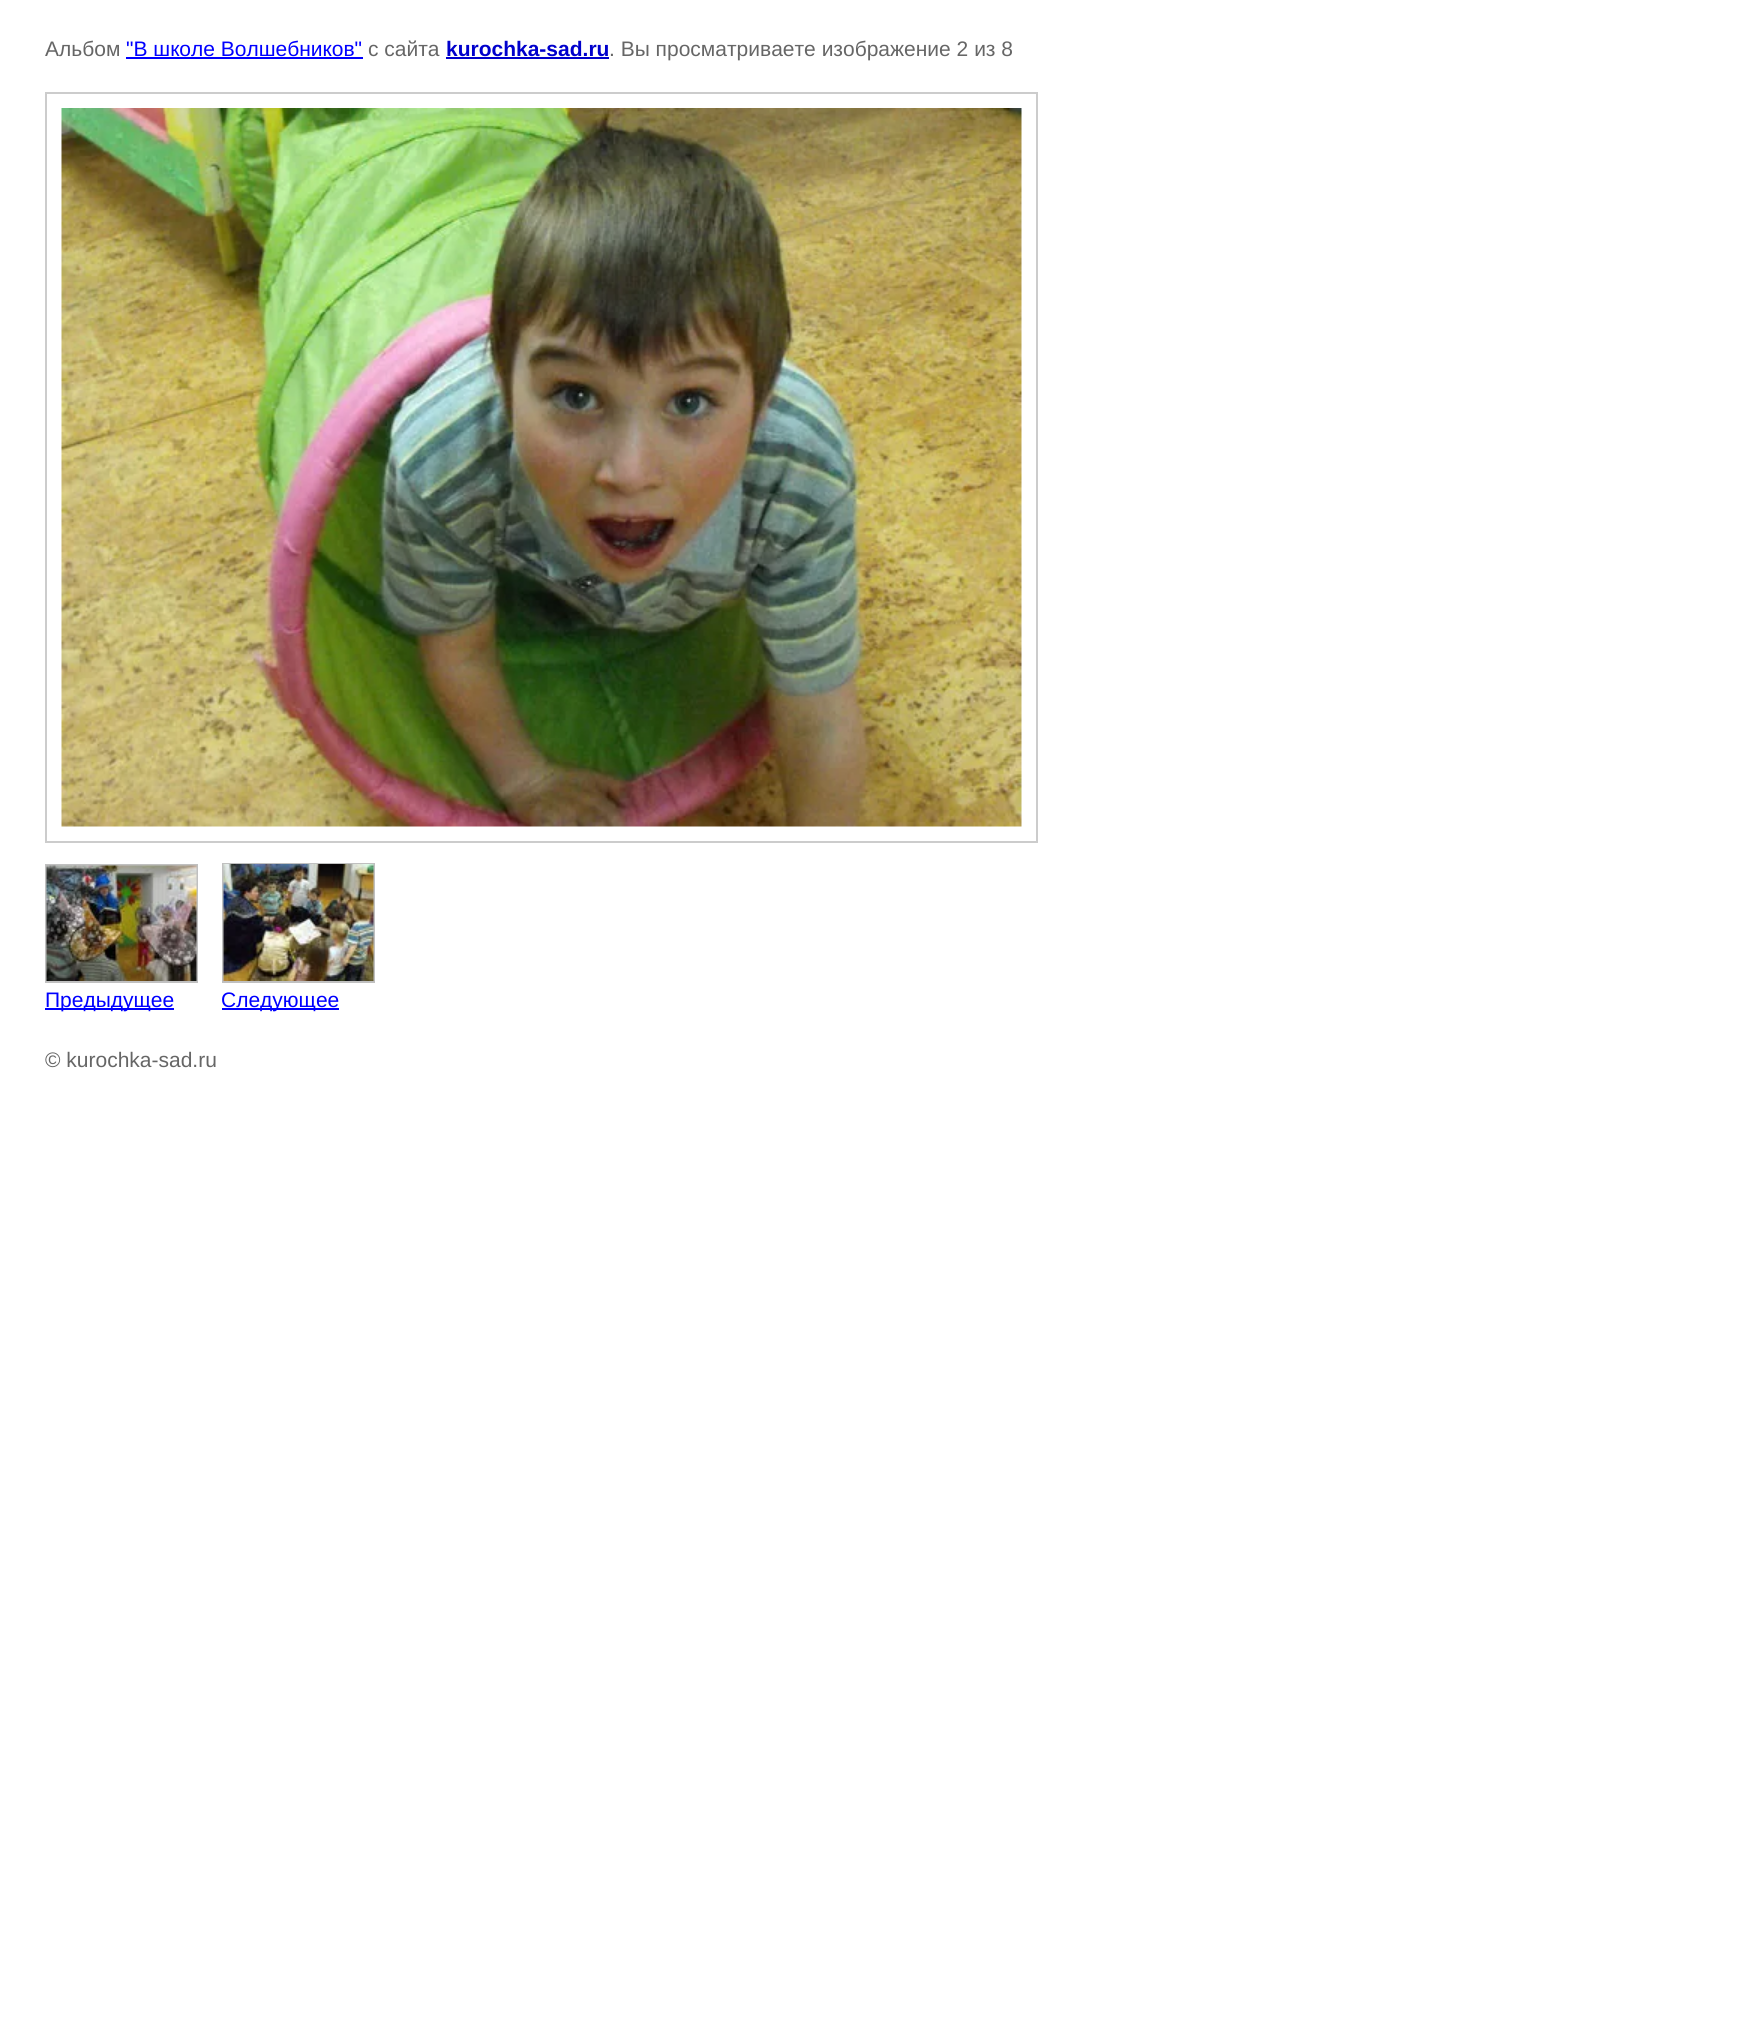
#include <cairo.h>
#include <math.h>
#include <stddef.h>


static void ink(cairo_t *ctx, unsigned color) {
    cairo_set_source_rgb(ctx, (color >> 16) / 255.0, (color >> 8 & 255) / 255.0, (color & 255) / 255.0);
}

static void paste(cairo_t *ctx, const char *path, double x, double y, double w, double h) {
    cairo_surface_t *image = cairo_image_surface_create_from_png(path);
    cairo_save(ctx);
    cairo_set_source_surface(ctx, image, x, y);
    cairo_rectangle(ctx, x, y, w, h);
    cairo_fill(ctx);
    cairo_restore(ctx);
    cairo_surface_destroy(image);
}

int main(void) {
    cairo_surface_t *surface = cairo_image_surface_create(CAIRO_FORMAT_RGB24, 1764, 2037);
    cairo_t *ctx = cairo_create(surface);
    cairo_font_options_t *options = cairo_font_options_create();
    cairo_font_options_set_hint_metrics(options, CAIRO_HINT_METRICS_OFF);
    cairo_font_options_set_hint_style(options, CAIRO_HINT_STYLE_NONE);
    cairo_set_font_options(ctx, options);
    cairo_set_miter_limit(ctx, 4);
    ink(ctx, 0xFFFFFF);
    cairo_paint(ctx);
    cairo_select_font_face(ctx, "Liberation Sans", CAIRO_FONT_SLANT_NORMAL, CAIRO_FONT_WEIGHT_NORMAL);
    cairo_set_font_size(ctx, 21);
    ink(ctx, 0x666666);
    cairo_move_to(ctx, 45, 56);
    cairo_show_text(ctx, "Альбом");
    ink(ctx, 0x0000FF);
    cairo_move_to(ctx, 126, 56);
    cairo_show_text(ctx, "\"В школе Волшебников\"");
    cairo_rectangle(ctx, 126, 57, 237, 2);
    cairo_fill(ctx);
    ink(ctx, 0x666666);
    cairo_move_to(ctx, 368, 56);
    cairo_show_text(ctx, "с сайта");
    cairo_select_font_face(ctx, "Liberation Sans", CAIRO_FONT_SLANT_NORMAL, CAIRO_FONT_WEIGHT_BOLD);
    ink(ctx, 0x0000CC);
    cairo_move_to(ctx, 446, 56);
    cairo_show_text(ctx, "kurochka-sad.ru");
    cairo_rectangle(ctx, 446, 57, 163, 2);
    cairo_fill(ctx);
    cairo_select_font_face(ctx, "Liberation Sans", CAIRO_FONT_SLANT_NORMAL, CAIRO_FONT_WEIGHT_NORMAL);
    ink(ctx, 0x666666);
    cairo_move_to(ctx, 609, 56);
    cairo_show_text(ctx, ". Вы просматриваете изображение 2 из 8");
    cairo_rectangle(ctx, 46, 93, 991, 749);
    ink(ctx, 0xCCCCCC);
    cairo_stroke(ctx);
    paste(ctx, "media/1.png", 61, 108, 961, 719);
    cairo_rectangle(ctx, 46, 865, 151, 117);
    ink(ctx, 0xC0C0C0);
    cairo_stroke(ctx);
    paste(ctx, "media/2.png", 46, 865, 151, 116);
    ink(ctx, 0x0000FF);
    cairo_rectangle(ctx, 45, 1008, 129, 2);
    cairo_fill(ctx);
    cairo_move_to(ctx, 45, 1007);
    cairo_show_text(ctx, "Предыдущее");
    cairo_rectangle(ctx, 223, 864, 151, 118);
    ink(ctx, 0xC0C0C0);
    cairo_stroke(ctx);
    paste(ctx, "media/3.png", 223, 864, 151, 117);
    ink(ctx, 0x0000FF);
    cairo_rectangle(ctx, 222, 1008, 117, 2);
    cairo_fill(ctx);
    cairo_move_to(ctx, 221, 1007);
    cairo_show_text(ctx, "Следующее");
    ink(ctx, 0x666666);
    cairo_move_to(ctx, 45, 1067);
    cairo_show_text(ctx, "© kurochka-sad.ru");
    cairo_surface_write_to_png(surface, "image.png");
    cairo_font_options_destroy(options);
    cairo_destroy(ctx);
    cairo_surface_destroy(surface);
    return 0;
}
